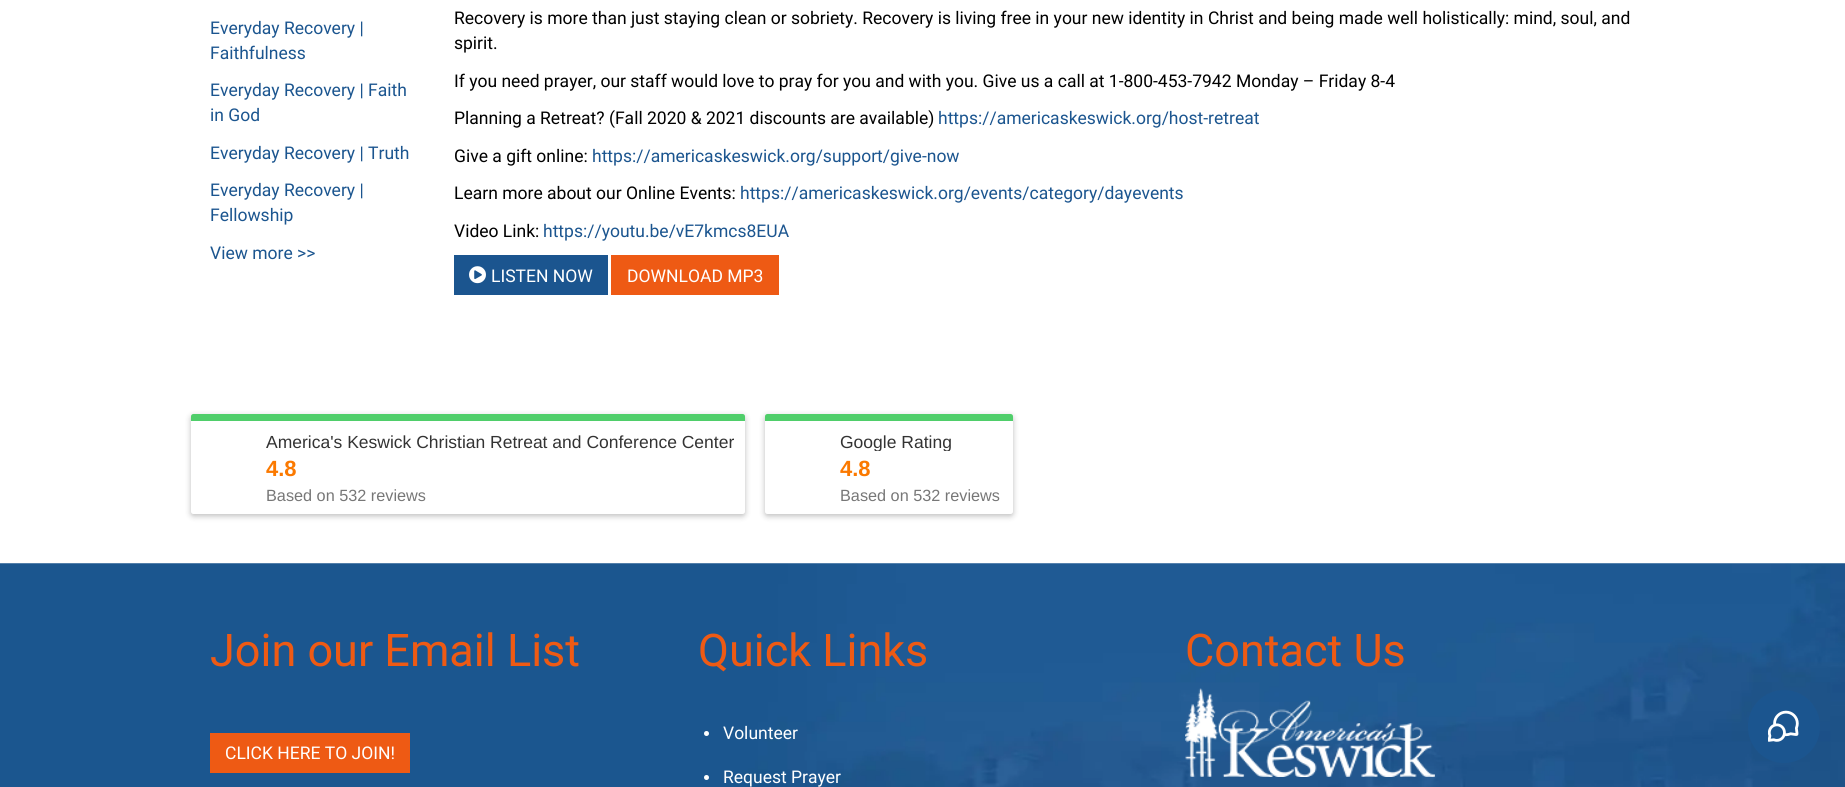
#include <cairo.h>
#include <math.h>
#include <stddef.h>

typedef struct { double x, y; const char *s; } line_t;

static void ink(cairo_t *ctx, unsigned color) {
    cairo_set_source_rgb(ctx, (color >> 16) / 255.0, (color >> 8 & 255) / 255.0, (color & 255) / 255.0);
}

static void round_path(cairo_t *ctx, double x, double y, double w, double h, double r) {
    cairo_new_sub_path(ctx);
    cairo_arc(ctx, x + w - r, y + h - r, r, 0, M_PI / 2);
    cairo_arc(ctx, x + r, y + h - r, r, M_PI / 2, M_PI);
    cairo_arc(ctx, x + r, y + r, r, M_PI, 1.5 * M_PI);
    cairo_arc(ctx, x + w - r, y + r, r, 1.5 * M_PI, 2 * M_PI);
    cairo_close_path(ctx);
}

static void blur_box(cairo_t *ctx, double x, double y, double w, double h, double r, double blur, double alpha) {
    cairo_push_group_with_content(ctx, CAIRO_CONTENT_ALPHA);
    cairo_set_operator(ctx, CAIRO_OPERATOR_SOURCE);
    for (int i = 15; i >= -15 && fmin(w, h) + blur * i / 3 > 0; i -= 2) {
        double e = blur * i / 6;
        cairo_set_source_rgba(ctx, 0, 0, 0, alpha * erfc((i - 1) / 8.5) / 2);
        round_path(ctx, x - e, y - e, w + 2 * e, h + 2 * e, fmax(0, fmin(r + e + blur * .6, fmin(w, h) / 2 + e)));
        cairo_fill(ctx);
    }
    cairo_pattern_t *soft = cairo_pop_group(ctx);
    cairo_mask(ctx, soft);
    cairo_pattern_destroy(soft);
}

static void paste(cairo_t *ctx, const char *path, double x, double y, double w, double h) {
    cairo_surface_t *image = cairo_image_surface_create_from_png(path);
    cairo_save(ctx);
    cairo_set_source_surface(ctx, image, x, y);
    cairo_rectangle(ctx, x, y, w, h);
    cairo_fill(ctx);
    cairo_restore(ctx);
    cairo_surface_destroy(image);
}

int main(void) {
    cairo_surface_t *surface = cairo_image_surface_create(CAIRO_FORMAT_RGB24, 1845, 787);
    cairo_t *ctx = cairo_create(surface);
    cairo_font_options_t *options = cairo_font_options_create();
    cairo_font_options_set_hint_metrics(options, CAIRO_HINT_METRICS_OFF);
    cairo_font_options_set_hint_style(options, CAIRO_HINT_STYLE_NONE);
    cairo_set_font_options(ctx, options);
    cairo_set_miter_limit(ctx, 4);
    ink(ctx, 0xFFFFFF);
    cairo_paint(ctx);
    cairo_select_font_face(ctx, "Roboto", CAIRO_FONT_SLANT_NORMAL, CAIRO_FONT_WEIGHT_NORMAL);
    cairo_set_font_size(ctx, 17.5);
    ink(ctx, 0x1B558F);
    {
        static const line_t items[] = {
            {210, 34, "Everyday Recovery |"},
            {210, 59, "Faithfulness"},
            {210, 96, "Everyday Recovery | Faith"},
            {210, 121, "in God"},
            {210, 159, "Everyday Recovery | Truth"},
            {210, 196, "Everyday Recovery |"},
            {210, 221, "Fellowship"},
            {210, 259, "View more >>"},
        };
        for (size_t i = 0; i < sizeof items / sizeof *items; i++) {
            cairo_move_to(ctx, items[i].x, items[i].y);
            cairo_show_text(ctx, items[i].s);
        }
    }
    ink(ctx, 0x000000);
    {
        static const line_t items[] = {
            {454, 24, "Recovery is more than just staying clean or sobriety. Recovery is living free in your new identity in Christ and being made well holistically: mind, soul, and"},
            {454, 49, "spirit."},
            {454, 87, "If you need prayer, our staff would love to pray for you and with you. Give us a call at 1-800-453-7942 Monday – Friday 8-4"},
            {454, 124, "Planning a Retreat? (Fall 2020 & 2021 discounts are available)"},
        };
        for (size_t i = 0; i < sizeof items / sizeof *items; i++) {
            cairo_move_to(ctx, items[i].x, items[i].y);
            cairo_show_text(ctx, items[i].s);
        }
    }
    ink(ctx, 0x1B558F);
    cairo_move_to(ctx, 938, 124);
    cairo_show_text(ctx, "https://americaskeswick.org/host-retreat");
    ink(ctx, 0x000000);
    cairo_move_to(ctx, 454, 162);
    cairo_show_text(ctx, "Give a gift online:");
    ink(ctx, 0x1B558F);
    cairo_move_to(ctx, 592, 162);
    cairo_show_text(ctx, "https://americaskeswick.org/support/give-now");
    ink(ctx, 0x000000);
    cairo_move_to(ctx, 454, 199);
    cairo_show_text(ctx, "Learn more about our Online Events:");
    ink(ctx, 0x1B558F);
    cairo_move_to(ctx, 740, 199);
    cairo_show_text(ctx, "https://americaskeswick.org/events/category/dayevents");
    ink(ctx, 0x000000);
    cairo_move_to(ctx, 454, 237);
    cairo_show_text(ctx, "Video Link:");
    ink(ctx, 0x1B558F);
    cairo_move_to(ctx, 543, 237);
    cairo_show_text(ctx, "https://youtu.be/vE7kmcs8EUA");
    cairo_rectangle(ctx, 454, 255, 154, 40);
    cairo_fill(ctx);
    paste(ctx, "media/1.png", 469, 266, 17, 18);
    ink(ctx, 0xFFFFFF);
    cairo_move_to(ctx, 491, 282);
    cairo_show_text(ctx, "LISTEN NOW");
    ink(ctx, 0xEE5A14);
    cairo_rectangle(ctx, 611, 255, 168, 40);
    cairo_fill(ctx);
    ink(ctx, 0xFFFFFF);
    cairo_move_to(ctx, 627, 282);
    cairo_show_text(ctx, "DOWNLOAD MP3");
    ink(ctx, 0x000000);
    blur_box(ctx, 191, 416, 554, 100, 2.5, 3, 0.26);
    ink(ctx, 0x4FCE6A);
    cairo_new_path(ctx);
    cairo_move_to(ctx, 193.5, 414);
    cairo_line_to(ctx, 742.5, 414);
    cairo_curve_to(ctx, 744, 414, 745, 415, 745, 416.5);
    cairo_line_to(ctx, 745, 421);
    cairo_line_to(ctx, 191, 421);
    cairo_line_to(ctx, 191, 416.5);
    cairo_curve_to(ctx, 191, 415, 192, 414, 193.5, 414);
    cairo_close_path(ctx);
    cairo_fill(ctx);
    ink(ctx, 0xFFFFFF);
    cairo_new_path(ctx);
    cairo_move_to(ctx, 191, 421);
    cairo_line_to(ctx, 745, 421);
    cairo_line_to(ctx, 745, 511.5);
    cairo_curve_to(ctx, 745, 513, 744, 514, 742.5, 514);
    cairo_line_to(ctx, 193.5, 514);
    cairo_curve_to(ctx, 192, 514, 191, 513, 191, 511.5);
    cairo_close_path(ctx);
    cairo_fill(ctx);
    cairo_select_font_face(ctx, "Liberation Sans", CAIRO_FONT_SLANT_NORMAL, CAIRO_FONT_WEIGHT_NORMAL);
    ink(ctx, 0x333333);
    cairo_move_to(ctx, 266, 448);
    cairo_show_text(ctx, "America's Keswick Christian Retreat and Conference Center");
    cairo_select_font_face(ctx, "Liberation Sans", CAIRO_FONT_SLANT_NORMAL, CAIRO_FONT_WEIGHT_BOLD);
    cairo_set_font_size(ctx, 22);
    ink(ctx, 0xFB7900);
    cairo_move_to(ctx, 266, 476);
    cairo_show_text(ctx, "4.8");
    cairo_select_font_face(ctx, "Liberation Sans", CAIRO_FONT_SLANT_NORMAL, CAIRO_FONT_WEIGHT_NORMAL);
    cairo_set_font_size(ctx, 16.25);
    ink(ctx, 0x777777);
    cairo_move_to(ctx, 266, 501);
    cairo_show_text(ctx, "Based on 532 reviews");
    ink(ctx, 0x000000);
    blur_box(ctx, 765, 416, 248, 100, 2.5, 3, 0.26);
    ink(ctx, 0x4FCE6A);
    cairo_new_path(ctx);
    cairo_move_to(ctx, 767.5, 414);
    cairo_line_to(ctx, 1010.5, 414);
    cairo_curve_to(ctx, 1012, 414, 1013, 415, 1013, 416.5);
    cairo_line_to(ctx, 1013, 421);
    cairo_line_to(ctx, 765, 421);
    cairo_line_to(ctx, 765, 416.5);
    cairo_curve_to(ctx, 765, 415, 766, 414, 767.5, 414);
    cairo_close_path(ctx);
    cairo_fill(ctx);
    ink(ctx, 0xFFFFFF);
    cairo_new_path(ctx);
    cairo_move_to(ctx, 765, 421);
    cairo_line_to(ctx, 1013, 421);
    cairo_line_to(ctx, 1013, 511.5);
    cairo_curve_to(ctx, 1013, 513, 1012, 514, 1010.5, 514);
    cairo_line_to(ctx, 767.5, 514);
    cairo_curve_to(ctx, 766, 514, 765, 513, 765, 511.5);
    cairo_close_path(ctx);
    cairo_fill(ctx);
    cairo_save(ctx);
    cairo_rectangle(ctx, 840, 431, 163, 20);
    cairo_clip(ctx);
    cairo_set_font_size(ctx, 17.5);
    ink(ctx, 0x333333);
    cairo_move_to(ctx, 840, 448);
    cairo_show_text(ctx, "Google Rating");
    cairo_restore(ctx);
    cairo_select_font_face(ctx, "Liberation Sans", CAIRO_FONT_SLANT_NORMAL, CAIRO_FONT_WEIGHT_BOLD);
    cairo_set_font_size(ctx, 22);
    ink(ctx, 0xFB7900);
    cairo_move_to(ctx, 840, 476);
    cairo_show_text(ctx, "4.8");
    cairo_select_font_face(ctx, "Liberation Sans", CAIRO_FONT_SLANT_NORMAL, CAIRO_FONT_WEIGHT_NORMAL);
    cairo_set_font_size(ctx, 16.25);
    ink(ctx, 0x777777);
    cairo_move_to(ctx, 840, 501);
    cairo_show_text(ctx, "Based on 532 reviews");
    paste(ctx, "media/2.png", 0, 563, 1845, 224);
    cairo_select_font_face(ctx, "Roboto", CAIRO_FONT_SLANT_NORMAL, CAIRO_FONT_WEIGHT_NORMAL);
    cairo_set_font_size(ctx, 45);
    ink(ctx, 0xEE5A14);
    cairo_move_to(ctx, 210, 666);
    cairo_show_text(ctx, "Join our Email List");
    cairo_rectangle(ctx, 210, 733, 200, 40);
    cairo_fill(ctx);
    cairo_set_font_size(ctx, 17.5);
    ink(ctx, 0xFFFFFF);
    cairo_move_to(ctx, 225, 759);
    cairo_show_text(ctx, "CLICK HERE TO JOIN!");
    cairo_set_font_size(ctx, 45);
    ink(ctx, 0xEE5A14);
    cairo_move_to(ctx, 698, 666);
    cairo_show_text(ctx, "Quick Links");
    ink(ctx, 0xFFFFFF);
    cairo_new_path(ctx);
    cairo_arc(ctx, 706.5, 733.5, 2.5, 0, 2 * M_PI);
    cairo_fill(ctx);
    cairo_set_font_size(ctx, 17.5);
    cairo_move_to(ctx, 723, 739);
    cairo_show_text(ctx, "Volunteer");
    cairo_new_path(ctx);
    cairo_arc(ctx, 706.5, 777.5, 2.5, 0, 2 * M_PI);
    cairo_fill(ctx);
    cairo_move_to(ctx, 723, 783);
    cairo_show_text(ctx, "Request Prayer");
    cairo_set_font_size(ctx, 45);
    ink(ctx, 0xEE5A14);
    cairo_move_to(ctx, 1185, 666);
    cairo_show_text(ctx, "Contact Us");
    paste(ctx, "media/3.png", 1185, 688, 250, 89);
    ink(ctx, 0x1B558F);
    round_path(ctx, 1748, 690, 72, 73, 36);
    cairo_fill(ctx);
    paste(ctx, "media/4.png", 1768, 710, 31, 32);
    cairo_surface_write_to_png(surface, "image.png");
    cairo_font_options_destroy(options);
    cairo_destroy(ctx);
    cairo_surface_destroy(surface);
    return 0;
}
